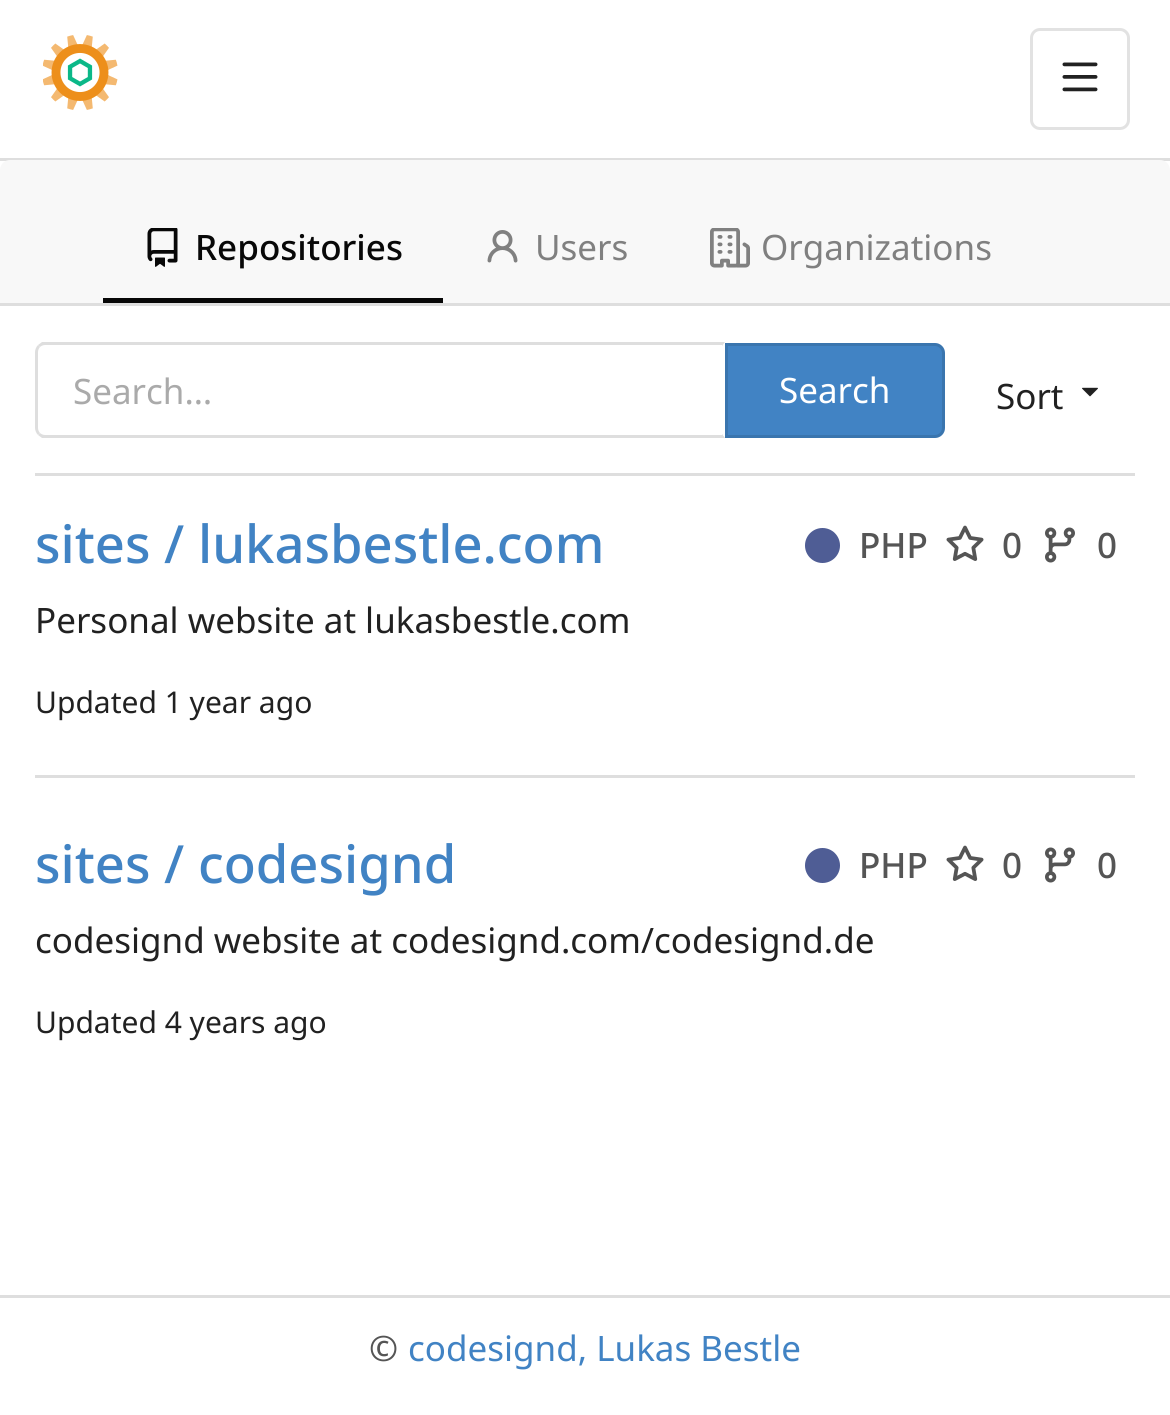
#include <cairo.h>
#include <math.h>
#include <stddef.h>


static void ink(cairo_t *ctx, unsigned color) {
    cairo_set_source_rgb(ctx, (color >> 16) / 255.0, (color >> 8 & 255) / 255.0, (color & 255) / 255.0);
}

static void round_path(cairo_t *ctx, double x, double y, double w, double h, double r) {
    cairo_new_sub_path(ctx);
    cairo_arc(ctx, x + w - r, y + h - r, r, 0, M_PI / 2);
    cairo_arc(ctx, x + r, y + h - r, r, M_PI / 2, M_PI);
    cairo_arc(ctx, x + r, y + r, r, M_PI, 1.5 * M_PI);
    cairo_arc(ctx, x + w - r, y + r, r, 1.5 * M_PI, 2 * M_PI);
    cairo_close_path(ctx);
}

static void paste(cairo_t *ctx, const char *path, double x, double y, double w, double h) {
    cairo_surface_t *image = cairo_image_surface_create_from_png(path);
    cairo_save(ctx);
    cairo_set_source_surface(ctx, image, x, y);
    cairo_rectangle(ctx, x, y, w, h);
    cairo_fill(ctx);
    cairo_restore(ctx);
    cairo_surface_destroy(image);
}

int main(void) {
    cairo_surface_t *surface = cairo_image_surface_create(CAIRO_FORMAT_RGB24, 1170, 1415);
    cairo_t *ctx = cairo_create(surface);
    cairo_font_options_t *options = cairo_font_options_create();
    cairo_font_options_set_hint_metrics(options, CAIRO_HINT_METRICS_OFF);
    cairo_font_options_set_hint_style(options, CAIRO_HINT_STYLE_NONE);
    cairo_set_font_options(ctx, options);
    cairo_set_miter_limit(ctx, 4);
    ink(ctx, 0xFFFFFF);
    cairo_paint(ctx);
    ink(ctx, 0xDEDEDE);
    cairo_rectangle(ctx, 0, 158, 1170, 3);
    cairo_fill(ctx);
    paste(ctx, "media/1.png", 43, 35, 75, 75);
    round_path(ctx, 1031.5, 29.5, 97, 99, 8.5);
    ink(ctx, 0xE2E2E2);
    cairo_set_line_width(ctx, 3);
    cairo_stroke(ctx);
    paste(ctx, "media/2.png", 1062, 62, 36, 30);
    ink(ctx, 0xF8F8F8);
    cairo_new_path(ctx);
    cairo_move_to(ctx, 10, 160);
    cairo_line_to(ctx, 1160, 160);
    cairo_curve_to(ctx, 1165.5, 160, 1170, 164.5, 1170, 170);
    cairo_line_to(ctx, 1170, 305);
    cairo_line_to(ctx, 0, 305);
    cairo_line_to(ctx, 0, 170);
    cairo_curve_to(ctx, 0, 164.5, 4.5, 160, 10, 160);
    cairo_close_path(ctx);
    cairo_fill(ctx);
    ink(ctx, 0xDEDEDE);
    cairo_rectangle(ctx, 0, 303, 1170, 3);
    cairo_fill(ctx);
    ink(ctx, 0x080808);
    cairo_rectangle(ctx, 103, 298, 340, 5);
    cairo_fill(ctx);
    paste(ctx, "media/3.png", 147, 228, 31, 39);
    cairo_select_font_face(ctx, "Noto Sans Medium", CAIRO_FONT_SLANT_NORMAL, CAIRO_FONT_WEIGHT_NORMAL);
    cairo_set_font_size(ctx, 35);
    cairo_move_to(ctx, 195, 260);
    cairo_show_text(ctx, "Repositories");
    paste(ctx, "media/4.png", 487, 230, 31, 33);
    cairo_select_font_face(ctx, "Noto Sans", CAIRO_FONT_SLANT_NORMAL, CAIRO_FONT_WEIGHT_NORMAL);
    ink(ctx, 0x808080);
    cairo_move_to(ctx, 535, 260);
    cairo_show_text(ctx, "Users");
    paste(ctx, "media/5.png", 710, 228, 40, 40);
    cairo_move_to(ctx, 761, 260);
    cairo_show_text(ctx, "Organizations");
    ink(ctx, 0xDEDEDE);
    cairo_new_path(ctx);
    cairo_move_to(ctx, 45, 345);
    cairo_curve_to(ctx, 43, 345, 41, 346, 40, 347);
    cairo_line_to(ctx, 38, 345);
    cairo_line_to(ctx, 42, 342);
    cairo_line_to(ctx, 725, 342);
    cairo_line_to(ctx, 722, 346);
    cairo_line_to(ctx, 722, 345);
    cairo_close_path(ctx);
    cairo_fill(ctx);
    cairo_new_path(ctx);
    cairo_move_to(ctx, 725, 438);
    cairo_line_to(ctx, 42, 438);
    cairo_line_to(ctx, 38, 435);
    cairo_line_to(ctx, 40, 433);
    cairo_curve_to(ctx, 41, 434, 43, 435, 45, 435);
    cairo_line_to(ctx, 722, 435);
    cairo_line_to(ctx, 722, 434);
    cairo_close_path(ctx);
    cairo_fill(ctx);
    cairo_new_path(ctx);
    cairo_move_to(ctx, 35, 352);
    cairo_line_to(ctx, 35, 428);
    cairo_curve_to(ctx, 35, 430, 36, 433, 38, 435);
    cairo_line_to(ctx, 40, 433);
    cairo_curve_to(ctx, 39, 432, 38, 430, 38, 428);
    cairo_line_to(ctx, 38, 352);
    cairo_curve_to(ctx, 38, 350, 39, 348, 40, 347);
    cairo_line_to(ctx, 38, 345);
    cairo_curve_to(ctx, 36, 347, 35, 350, 35, 352);
    cairo_close_path(ctx);
    cairo_fill(ctx);
    ink(ctx, 0xAAAAAA);
    cairo_move_to(ctx, 73, 404);
    cairo_show_text(ctx, "Search…");
    ink(ctx, 0x4183C4);
    cairo_new_path(ctx);
    cairo_move_to(ctx, 725, 343);
    cairo_line_to(ctx, 935, 343);
    cairo_curve_to(ctx, 940.5, 343, 945, 347.5, 945, 353);
    cairo_line_to(ctx, 945, 428);
    cairo_curve_to(ctx, 945, 433.5, 940.5, 438, 935, 438);
    cairo_line_to(ctx, 725, 438);
    cairo_close_path(ctx);
    cairo_fill(ctx);
    cairo_new_path(ctx);
    cairo_move_to(ctx, 726.5, 344.5);
    cairo_line_to(ctx, 935, 344.5);
    cairo_curve_to(ctx, 939.5, 344.5, 943.5, 348.5, 943.5, 353);
    cairo_line_to(ctx, 943.5, 428);
    cairo_curve_to(ctx, 943.5, 432.5, 939.5, 436.5, 935, 436.5);
    cairo_line_to(ctx, 726.5, 436.5);
    cairo_close_path(ctx);
    cairo_set_source_rgba(ctx, 0, 0, 0, 0.11);
    cairo_stroke(ctx);
    ink(ctx, 0xFFFFFF);
    cairo_move_to(ctx, 779, 403);
    cairo_show_text(ctx, "Search");
    ink(ctx, 0x212121);
    cairo_move_to(ctx, 996, 409);
    cairo_show_text(ctx, "Sort");
    paste(ctx, "media/6.png", 1082, 387, 16, 10);
    ink(ctx, 0xDEDEDE);
    cairo_rectangle(ctx, 35, 473, 1100, 3);
    cairo_fill(ctx);
    cairo_select_font_face(ctx, "Noto Sans Medium", CAIRO_FONT_SLANT_NORMAL, CAIRO_FONT_WEIGHT_NORMAL);
    cairo_set_font_size(ctx, 52.5);
    ink(ctx, 0x4183C4);
    cairo_move_to(ctx, 35, 563);
    cairo_show_text(ctx, "sites / lukasbestle.com");
    ink(ctx, 0x4F5D95);
    cairo_new_path(ctx);
    cairo_arc(ctx, 822.5, 545.5, 17.5, 0, 2 * M_PI);
    cairo_fill(ctx);
    cairo_set_font_size(ctx, 35);
    ink(ctx, 0x555555);
    cairo_move_to(ctx, 859, 558);
    cairo_show_text(ctx, "PHP");
    paste(ctx, "media/7.png", 946, 525, 38, 36);
    cairo_move_to(ctx, 1002, 558);
    cairo_show_text(ctx, "0");
    paste(ctx, "media/8.png", 1045, 527, 30, 36);
    cairo_move_to(ctx, 1097, 558);
    cairo_show_text(ctx, "0");
    cairo_select_font_face(ctx, "Noto Sans", CAIRO_FONT_SLANT_NORMAL, CAIRO_FONT_WEIGHT_NORMAL);
    ink(ctx, 0x212121);
    cairo_move_to(ctx, 35, 633);
    cairo_show_text(ctx, "Personal website at lukasbestle.com");
    cairo_set_font_size(ctx, 30);
    cairo_move_to(ctx, 35, 713);
    cairo_show_text(ctx, "Updated 1 year ago");
    ink(ctx, 0xDEDEDE);
    cairo_rectangle(ctx, 35, 775, 1100, 3);
    cairo_fill(ctx);
    cairo_select_font_face(ctx, "Noto Sans Medium", CAIRO_FONT_SLANT_NORMAL, CAIRO_FONT_WEIGHT_NORMAL);
    cairo_set_font_size(ctx, 52.5);
    ink(ctx, 0x4183C4);
    cairo_move_to(ctx, 35, 883);
    cairo_show_text(ctx, "sites / codesignd");
    ink(ctx, 0x4F5D95);
    cairo_new_path(ctx);
    cairo_arc(ctx, 822.5, 865.5, 17.5, 0, 2 * M_PI);
    cairo_fill(ctx);
    cairo_set_font_size(ctx, 35);
    ink(ctx, 0x555555);
    cairo_move_to(ctx, 859, 878);
    cairo_show_text(ctx, "PHP");
    paste(ctx, "media/7.png", 946, 845, 38, 36);
    cairo_move_to(ctx, 1002, 878);
    cairo_show_text(ctx, "0");
    paste(ctx, "media/8.png", 1045, 847, 30, 36);
    cairo_move_to(ctx, 1097, 878);
    cairo_show_text(ctx, "0");
    cairo_select_font_face(ctx, "Noto Sans", CAIRO_FONT_SLANT_NORMAL, CAIRO_FONT_WEIGHT_NORMAL);
    ink(ctx, 0x212121);
    cairo_move_to(ctx, 35, 953);
    cairo_show_text(ctx, "codesignd website at codesignd.com/codesignd.de");
    cairo_set_font_size(ctx, 30);
    cairo_move_to(ctx, 35, 1033);
    cairo_show_text(ctx, "Updated 4 years ago");
    ink(ctx, 0xDEDEDE);
    cairo_rectangle(ctx, 0, 1295, 1170, 3);
    cairo_fill(ctx);
    cairo_set_font_size(ctx, 35);
    ink(ctx, 0x555555);
    cairo_move_to(ctx, 369, 1361);
    cairo_show_text(ctx, "©");
    ink(ctx, 0x4183C4);
    cairo_move_to(ctx, 408, 1361);
    cairo_show_text(ctx, "codesignd, Lukas Bestle");
    cairo_surface_write_to_png(surface, "image.png");
    cairo_font_options_destroy(options);
    cairo_destroy(ctx);
    cairo_surface_destroy(surface);
    return 0;
}
